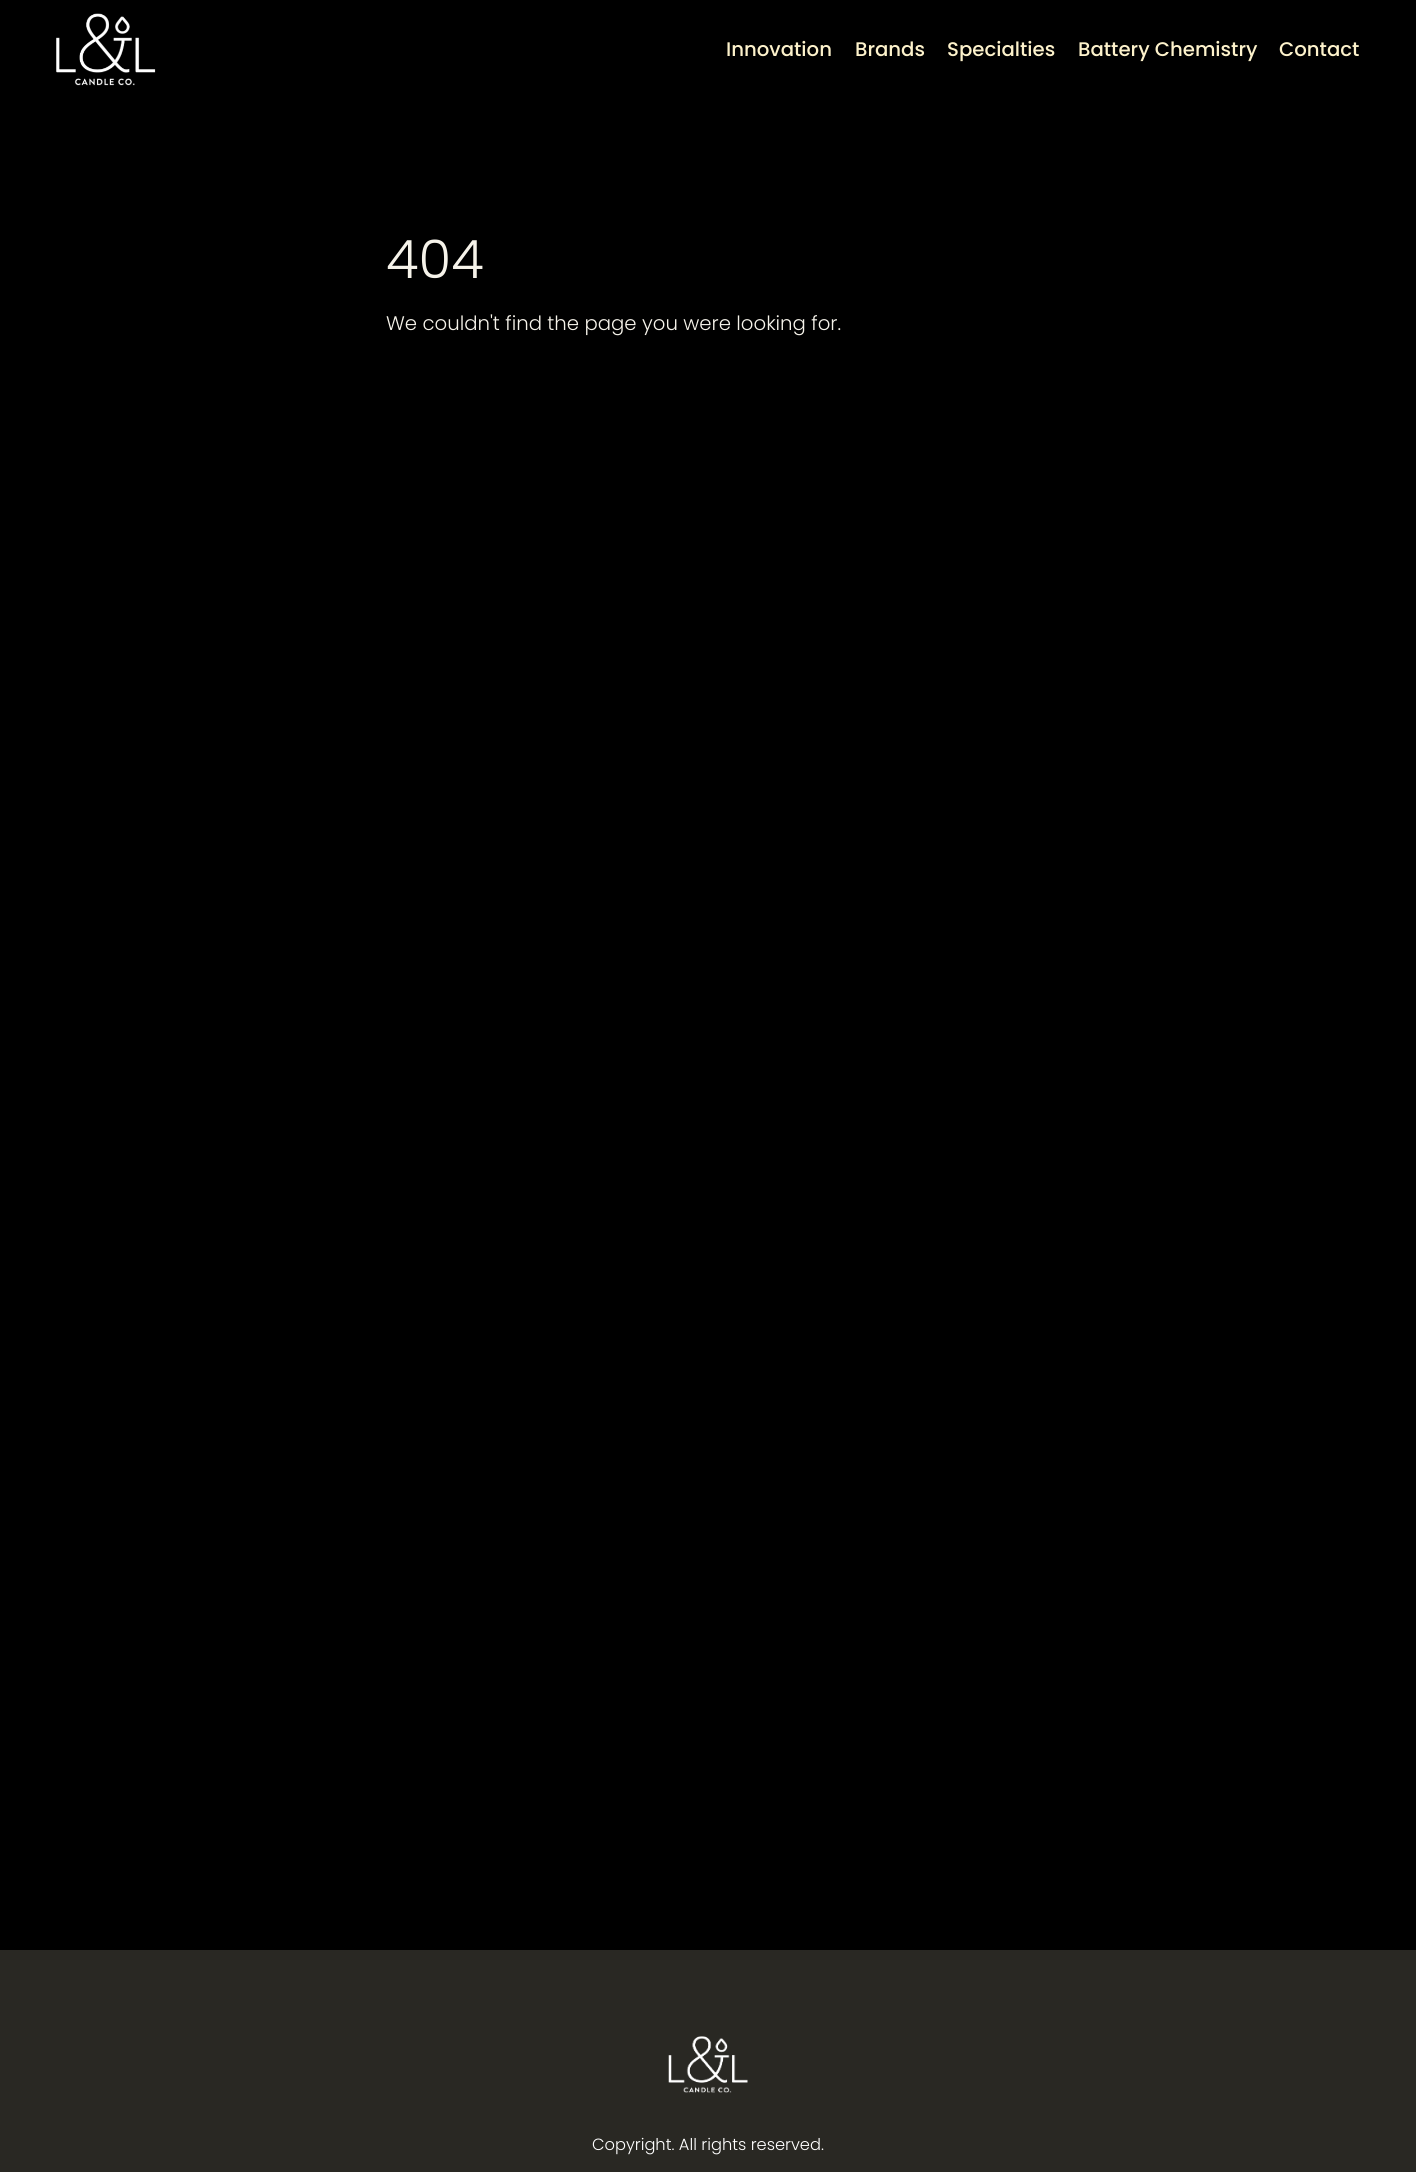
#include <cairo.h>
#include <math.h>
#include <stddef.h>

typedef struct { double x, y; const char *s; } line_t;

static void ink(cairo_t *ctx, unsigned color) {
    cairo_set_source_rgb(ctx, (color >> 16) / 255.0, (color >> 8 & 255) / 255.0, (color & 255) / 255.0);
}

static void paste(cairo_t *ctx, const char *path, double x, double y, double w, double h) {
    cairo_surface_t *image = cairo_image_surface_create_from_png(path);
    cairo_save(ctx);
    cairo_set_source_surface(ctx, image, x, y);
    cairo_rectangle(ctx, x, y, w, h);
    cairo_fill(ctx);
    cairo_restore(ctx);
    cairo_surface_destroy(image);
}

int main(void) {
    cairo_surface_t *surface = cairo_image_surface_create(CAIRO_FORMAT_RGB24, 1416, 2172);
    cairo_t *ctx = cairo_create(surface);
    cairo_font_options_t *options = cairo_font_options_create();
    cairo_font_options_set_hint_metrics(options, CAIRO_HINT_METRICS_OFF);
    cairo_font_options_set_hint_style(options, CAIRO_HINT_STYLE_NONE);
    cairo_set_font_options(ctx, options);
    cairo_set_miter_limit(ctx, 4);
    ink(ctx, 0x000000);
    cairo_paint(ctx);
    paste(ctx, "media/1.png", 56, 13, 100, 73);
    cairo_select_font_face(ctx, "Poppins Medium", CAIRO_FONT_SLANT_NORMAL, CAIRO_FONT_WEIGHT_NORMAL);
    cairo_set_font_size(ctx, 19.7);
    ink(ctx, 0xFDF2CB);
    {
        static const line_t items[] = {
            {726, 56, "Innovation"},
            {855, 56, "Brands"},
            {947, 56, "Specialties"},
            {1078, 56, "Battery Chemistry"},
            {1279, 56, "Contact"},
        };
        for (size_t i = 0; i < sizeof items / sizeof *items; i++) {
            cairo_move_to(ctx, items[i].x, items[i].y);
            cairo_show_text(ctx, items[i].s);
        }
    }
    cairo_select_font_face(ctx, "Poppins Light", CAIRO_FONT_SLANT_NORMAL, CAIRO_FONT_WEIGHT_NORMAL);
    cairo_set_font_size(ctx, 53);
    ink(ctx, 0xF6F3EA);
    cairo_move_to(ctx, 386, 278);
    cairo_show_text(ctx, "404");
    cairo_set_font_size(ctx, 19.7);
    cairo_move_to(ctx, 386, 330);
    cairo_show_text(ctx, "We couldn't find the page you were looking for.");
    ink(ctx, 0x292823);
    cairo_rectangle(ctx, 0, 1950, 1416, 222);
    cairo_fill(ctx);
    paste(ctx, "media/2.png", 668, 2036, 80, 57);
    cairo_set_font_size(ctx, 16.25);
    ink(ctx, 0xFFFFFF);
    cairo_move_to(ctx, 592, 2150);
    cairo_show_text(ctx, "Copyright. All rights reserved.");
    cairo_surface_write_to_png(surface, "image.png");
    cairo_font_options_destroy(options);
    cairo_destroy(ctx);
    cairo_surface_destroy(surface);
    return 0;
}
